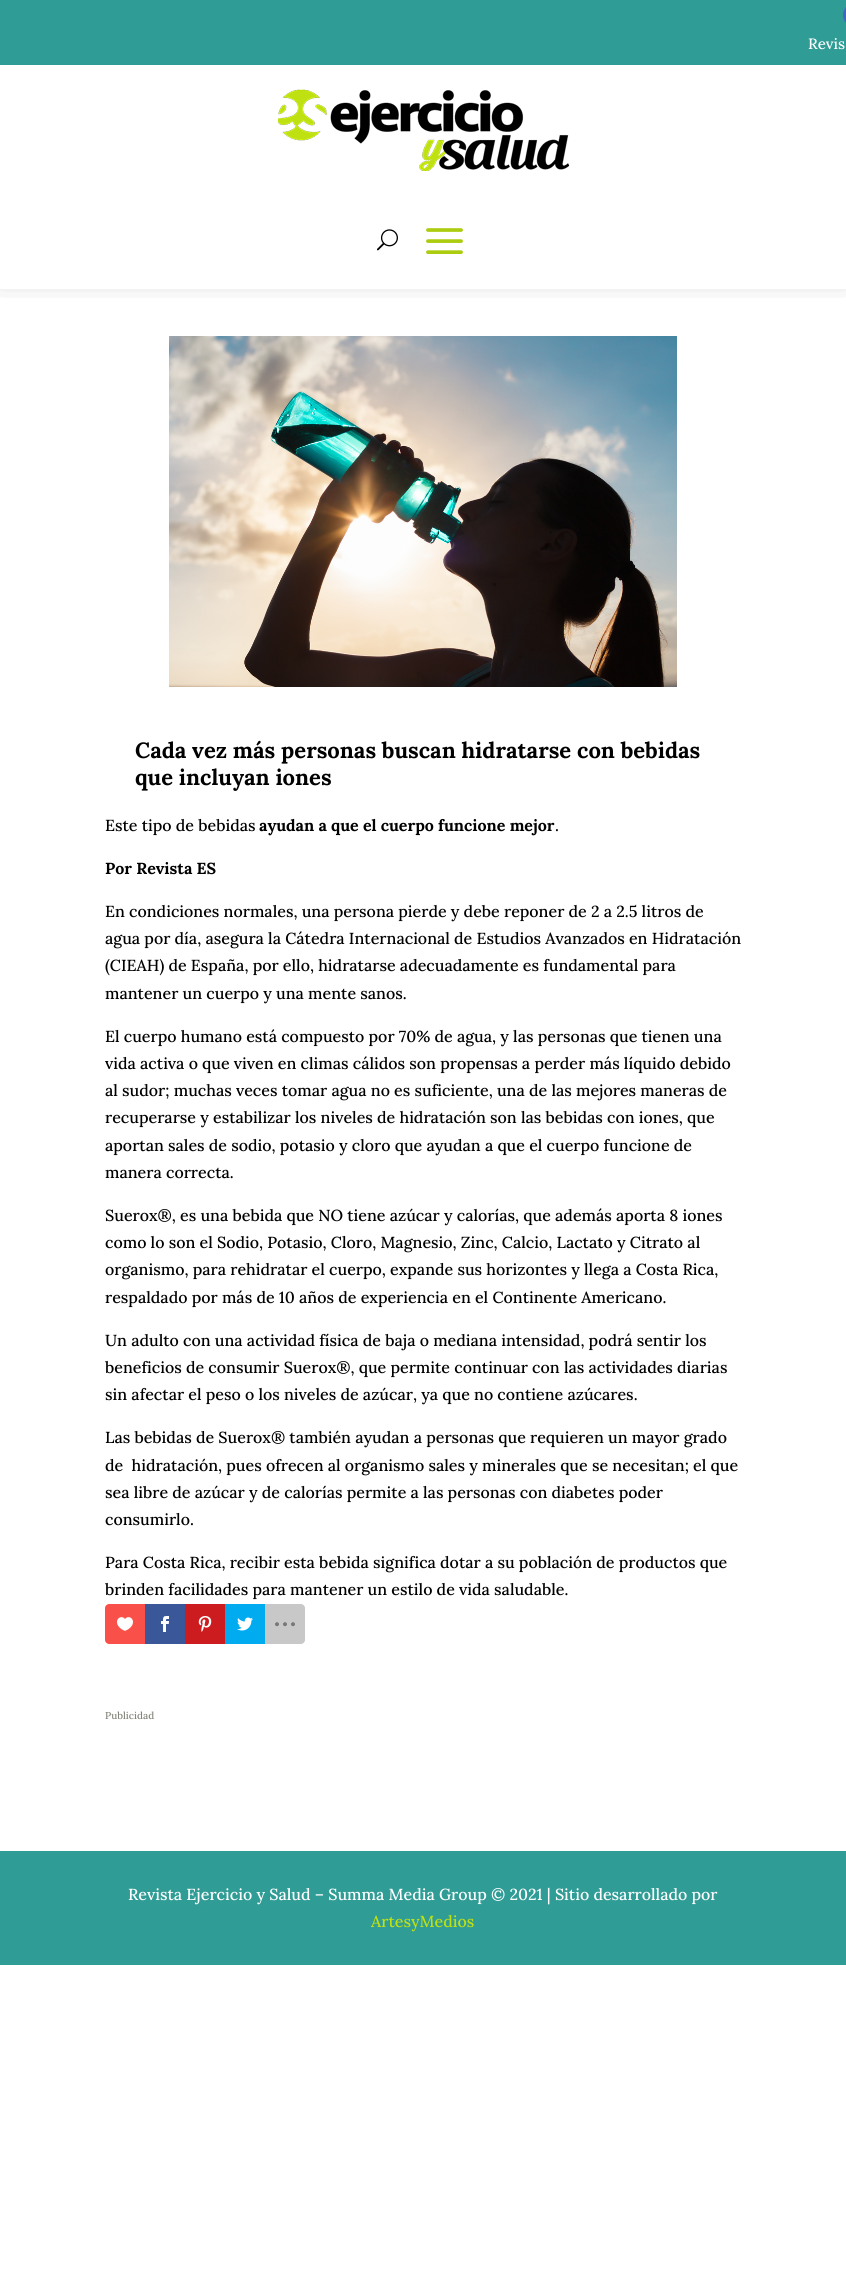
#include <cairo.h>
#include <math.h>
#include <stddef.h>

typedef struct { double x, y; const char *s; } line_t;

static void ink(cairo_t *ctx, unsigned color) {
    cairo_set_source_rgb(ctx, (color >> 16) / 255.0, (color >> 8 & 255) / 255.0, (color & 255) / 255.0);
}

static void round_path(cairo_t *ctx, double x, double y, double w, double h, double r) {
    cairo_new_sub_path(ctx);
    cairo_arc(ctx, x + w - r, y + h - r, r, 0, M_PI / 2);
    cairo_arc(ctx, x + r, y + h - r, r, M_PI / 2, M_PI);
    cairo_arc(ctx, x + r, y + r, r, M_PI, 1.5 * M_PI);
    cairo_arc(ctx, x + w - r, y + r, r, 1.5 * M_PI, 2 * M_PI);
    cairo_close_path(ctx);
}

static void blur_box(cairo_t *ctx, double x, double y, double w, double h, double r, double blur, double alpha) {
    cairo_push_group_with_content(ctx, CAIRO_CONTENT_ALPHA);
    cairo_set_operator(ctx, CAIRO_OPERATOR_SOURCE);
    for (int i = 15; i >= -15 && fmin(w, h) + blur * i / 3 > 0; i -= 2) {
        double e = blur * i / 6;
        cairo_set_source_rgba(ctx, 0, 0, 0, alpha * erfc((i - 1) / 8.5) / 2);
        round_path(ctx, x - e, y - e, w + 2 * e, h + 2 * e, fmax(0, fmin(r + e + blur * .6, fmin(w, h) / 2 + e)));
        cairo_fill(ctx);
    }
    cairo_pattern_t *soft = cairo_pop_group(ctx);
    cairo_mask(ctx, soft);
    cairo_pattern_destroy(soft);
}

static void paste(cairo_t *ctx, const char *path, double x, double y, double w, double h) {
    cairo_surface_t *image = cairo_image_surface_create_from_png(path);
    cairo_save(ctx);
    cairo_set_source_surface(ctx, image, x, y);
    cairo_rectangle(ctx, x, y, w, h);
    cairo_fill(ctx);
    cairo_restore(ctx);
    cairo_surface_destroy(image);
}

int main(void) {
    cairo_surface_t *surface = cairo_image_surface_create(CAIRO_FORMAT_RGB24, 846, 2283);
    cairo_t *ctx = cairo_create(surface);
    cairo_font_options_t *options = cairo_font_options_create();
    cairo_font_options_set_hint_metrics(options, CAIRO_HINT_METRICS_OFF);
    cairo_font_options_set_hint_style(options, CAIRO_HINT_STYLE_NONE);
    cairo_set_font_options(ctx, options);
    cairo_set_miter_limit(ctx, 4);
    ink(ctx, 0xFFFFFF);
    cairo_paint(ctx);
    cairo_save(ctx);
    cairo_rectangle(ctx, 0, 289, 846, 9);
    cairo_clip(ctx);
    ink(ctx, 0x000000);
    blur_box(ctx, 0, -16, 846, 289, 0, 16.5, 0.3);
    cairo_restore(ctx);
    ink(ctx, 0x2F9C95);
    cairo_rectangle(ctx, 0, 0, 846, 65);
    cairo_fill(ctx);
    ink(ctx, 0x3E68C0);
    round_path(ctx, 843, 3, 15, 24, 12);
    cairo_fill(ctx);
    cairo_select_font_face(ctx, "Lora Medium", CAIRO_FONT_SLANT_NORMAL, CAIRO_FONT_WEIGHT_NORMAL);
    cairo_set_font_size(ctx, 15);
    ink(ctx, 0xFFFFFF);
    cairo_move_to(ctx, 808, 49);
    cairo_show_text(ctx, "Revis");
    paste(ctx, "media/1.png", 277, 89, 293, 83);
    paste(ctx, "media/2.png", 377, 229, 21, 22);
    paste(ctx, "media/3.png", 426, 228, 37, 26);
    paste(ctx, "media/4.png", 169, 336, 508, 351);
    cairo_select_font_face(ctx, "Lora", CAIRO_FONT_SLANT_NORMAL, CAIRO_FONT_WEIGHT_BOLD);
    cairo_set_font_size(ctx, 22);
    ink(ctx, 0x000000);
    cairo_move_to(ctx, 135, 758);
    cairo_show_text(ctx, "Cada vez más personas buscan hidratarse con bebidas");
    cairo_move_to(ctx, 135, 785);
    cairo_show_text(ctx, "que incluyan iones");
    cairo_select_font_face(ctx, "Lora Medium", CAIRO_FONT_SLANT_NORMAL, CAIRO_FONT_WEIGHT_NORMAL);
    cairo_set_font_size(ctx, 16);
    cairo_move_to(ctx, 105, 831);
    cairo_show_text(ctx, "Este tipo de bebidas");
    cairo_select_font_face(ctx, "Lora", CAIRO_FONT_SLANT_NORMAL, CAIRO_FONT_WEIGHT_BOLD);
    cairo_move_to(ctx, 259, 831);
    cairo_show_text(ctx, "ayudan a que el cuerpo funcione mejor");
    cairo_select_font_face(ctx, "Lora Medium", CAIRO_FONT_SLANT_NORMAL, CAIRO_FONT_WEIGHT_NORMAL);
    cairo_move_to(ctx, 555, 831);
    cairo_show_text(ctx, ".");
    cairo_select_font_face(ctx, "Lora", CAIRO_FONT_SLANT_NORMAL, CAIRO_FONT_WEIGHT_BOLD);
    cairo_move_to(ctx, 105, 874);
    cairo_show_text(ctx, "Por Revista ES");
    cairo_select_font_face(ctx, "Lora Medium", CAIRO_FONT_SLANT_NORMAL, CAIRO_FONT_WEIGHT_NORMAL);
    {
        static const line_t items[] = {
            {105, 917, "En condiciones normales, una persona pierde y debe reponer de 2 a 2.5 litros de"},
            {105, 944, "agua por día, asegura la Cátedra Internacional de Estudios Avanzados en Hidratación"},
            {105, 971, "(CIEAH) de España, por ello, hidratarse adecuadamente es fundamental para"},
            {105, 999, "mantener un cuerpo y una mente sanos."},
            {105, 1042, "El cuerpo humano está compuesto por 70% de agua, y las personas que tienen una"},
            {105, 1069, "vida activa o que viven en climas cálidos son propensas a perder más líquido debido"},
            {105, 1096, "al sudor; muchas veces tomar agua no es suficiente, una de las mejores maneras de"},
            {105, 1123, "recuperarse y estabilizar los niveles de hidratación son las bebidas con iones, que"},
            {105, 1151, "aportan sales de sodio, potasio y cloro que ayudan a que el cuerpo funcione de"},
            {105, 1178, "manera correcta."},
            {105, 1221, "Suerox®, es una bebida que NO tiene azúcar y calorías, que además aporta 8 iones"},
            {105, 1248, "como lo son el Sodio, Potasio, Cloro, Magnesio, Zinc, Calcio, Lactato y Citrato al"},
            {105, 1275, "organismo, para rehidratar el cuerpo, expande sus horizontes y llega a Costa Rica,"},
            {105, 1303, "respaldado por más de 10 años de experiencia en el Continente Americano."},
            {105, 1346, "Un adulto con una actividad física de baja o mediana intensidad, podrá sentir los"},
            {105, 1373, "beneficios de consumir Suerox®, que permite continuar con las actividades diarias"},
            {105, 1400, "sin afectar el peso o los niveles de azúcar, ya que no contiene azúcares."},
            {105, 1443, "Las bebidas de Suerox® también ayudan a personas que requieren un mayor grado"},
            {105, 1471, "de  hidratación, pues ofrecen al organismo sales y minerales que se necesitan; el que"},
            {105, 1498, "sea libre de azúcar y de calorías permite a las personas con diabetes poder"},
            {105, 1525, "consumirlo."},
            {105, 1568, "Para Costa Rica, recibir esta bebida significa dotar a su población de productos que"},
            {105, 1595, "brinden facilidades para mantener un estilo de vida saludable."},
        };
        for (size_t i = 0; i < sizeof items / sizeof *items; i++) {
            cairo_move_to(ctx, items[i].x, items[i].y);
            cairo_show_text(ctx, items[i].s);
        }
    }
    ink(ctx, 0xF95149);
    cairo_new_path(ctx);
    cairo_move_to(ctx, 109, 1604);
    cairo_line_to(ctx, 145, 1604);
    cairo_line_to(ctx, 145, 1644);
    cairo_line_to(ctx, 109, 1644);
    cairo_curve_to(ctx, 107, 1644, 105, 1642, 105, 1640);
    cairo_line_to(ctx, 105, 1608);
    cairo_curve_to(ctx, 105, 1606, 107, 1604, 109, 1604);
    cairo_close_path(ctx);
    cairo_fill(ctx);
    paste(ctx, "media/5.png", 117, 1617, 16, 14);
    ink(ctx, 0x3A579A);
    cairo_rectangle(ctx, 145, 1604, 40, 40);
    cairo_fill(ctx);
    paste(ctx, "media/6.png", 161, 1616, 8, 16);
    ink(ctx, 0xCD1C1F);
    cairo_rectangle(ctx, 185, 1604, 40, 40);
    cairo_fill(ctx);
    paste(ctx, "media/7.png", 198, 1616, 14, 16);
    ink(ctx, 0x00ABF0);
    cairo_rectangle(ctx, 225, 1604, 40, 40);
    cairo_fill(ctx);
    paste(ctx, "media/8.png", 237, 1617, 16, 14);
    ink(ctx, 0xDEDEDE);
    cairo_new_path(ctx);
    cairo_move_to(ctx, 265, 1604);
    cairo_line_to(ctx, 301, 1604);
    cairo_curve_to(ctx, 303, 1604, 305, 1606, 305, 1608);
    cairo_line_to(ctx, 305, 1640);
    cairo_curve_to(ctx, 305, 1642, 303, 1644, 301, 1644);
    cairo_line_to(ctx, 265, 1644);
    cairo_close_path(ctx);
    cairo_fill(ctx);
    cairo_set_source_rgba(ctx, 0, 0, 0, 0.1);
    cairo_new_path(ctx);
    cairo_move_to(ctx, 265, 1604);
    cairo_line_to(ctx, 301, 1604);
    cairo_curve_to(ctx, 303, 1604, 305, 1606, 305, 1608);
    cairo_line_to(ctx, 305, 1640);
    cairo_curve_to(ctx, 305, 1642, 303, 1644, 301, 1644);
    cairo_line_to(ctx, 265, 1644);
    cairo_close_path(ctx);
    cairo_fill(ctx);
    paste(ctx, "media/9.png", 275, 1622, 20, 5);
    cairo_set_font_size(ctx, 10);
    ink(ctx, 0x818479);
    cairo_move_to(ctx, 105, 1719);
    cairo_show_text(ctx, "Publicidad");
    ink(ctx, 0x2F9C95);
    cairo_rectangle(ctx, 0, 1851, 846, 114);
    cairo_fill(ctx);
    cairo_set_font_size(ctx, 16);
    ink(ctx, 0xFFFFFF);
    cairo_move_to(ctx, 128, 1900);
    cairo_show_text(ctx, "Revista Ejercicio y Salud – Summa Media Group © 2021 | Sitio desarrollado por");
    ink(ctx, 0xBFE111);
    cairo_move_to(ctx, 371, 1927);
    cairo_show_text(ctx, "ArtesyMedios");
    cairo_surface_write_to_png(surface, "image.png");
    cairo_font_options_destroy(options);
    cairo_destroy(ctx);
    cairo_surface_destroy(surface);
    return 0;
}
